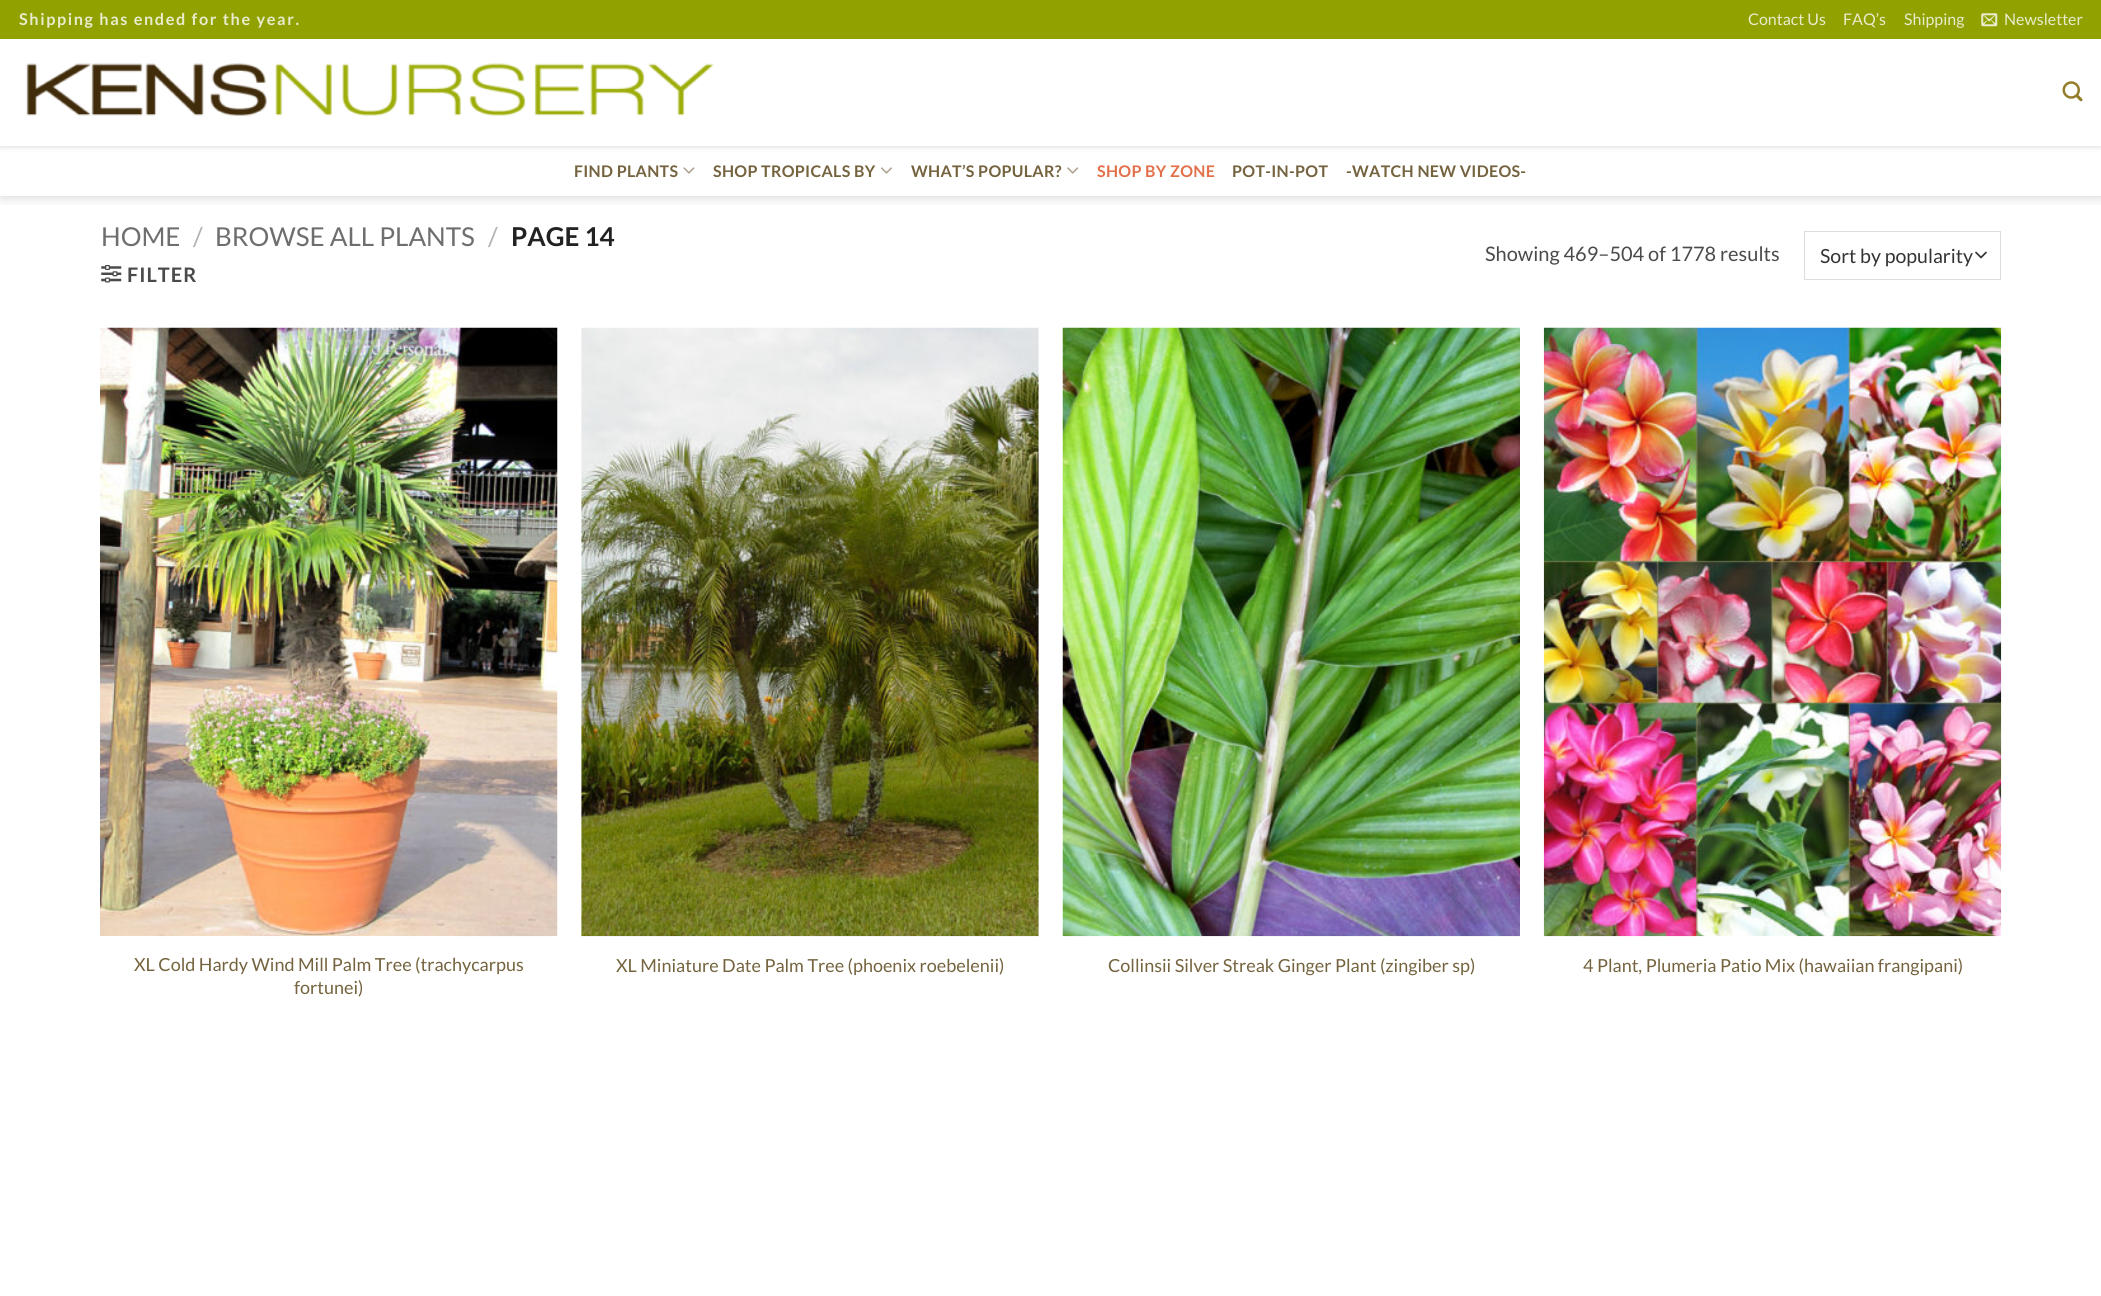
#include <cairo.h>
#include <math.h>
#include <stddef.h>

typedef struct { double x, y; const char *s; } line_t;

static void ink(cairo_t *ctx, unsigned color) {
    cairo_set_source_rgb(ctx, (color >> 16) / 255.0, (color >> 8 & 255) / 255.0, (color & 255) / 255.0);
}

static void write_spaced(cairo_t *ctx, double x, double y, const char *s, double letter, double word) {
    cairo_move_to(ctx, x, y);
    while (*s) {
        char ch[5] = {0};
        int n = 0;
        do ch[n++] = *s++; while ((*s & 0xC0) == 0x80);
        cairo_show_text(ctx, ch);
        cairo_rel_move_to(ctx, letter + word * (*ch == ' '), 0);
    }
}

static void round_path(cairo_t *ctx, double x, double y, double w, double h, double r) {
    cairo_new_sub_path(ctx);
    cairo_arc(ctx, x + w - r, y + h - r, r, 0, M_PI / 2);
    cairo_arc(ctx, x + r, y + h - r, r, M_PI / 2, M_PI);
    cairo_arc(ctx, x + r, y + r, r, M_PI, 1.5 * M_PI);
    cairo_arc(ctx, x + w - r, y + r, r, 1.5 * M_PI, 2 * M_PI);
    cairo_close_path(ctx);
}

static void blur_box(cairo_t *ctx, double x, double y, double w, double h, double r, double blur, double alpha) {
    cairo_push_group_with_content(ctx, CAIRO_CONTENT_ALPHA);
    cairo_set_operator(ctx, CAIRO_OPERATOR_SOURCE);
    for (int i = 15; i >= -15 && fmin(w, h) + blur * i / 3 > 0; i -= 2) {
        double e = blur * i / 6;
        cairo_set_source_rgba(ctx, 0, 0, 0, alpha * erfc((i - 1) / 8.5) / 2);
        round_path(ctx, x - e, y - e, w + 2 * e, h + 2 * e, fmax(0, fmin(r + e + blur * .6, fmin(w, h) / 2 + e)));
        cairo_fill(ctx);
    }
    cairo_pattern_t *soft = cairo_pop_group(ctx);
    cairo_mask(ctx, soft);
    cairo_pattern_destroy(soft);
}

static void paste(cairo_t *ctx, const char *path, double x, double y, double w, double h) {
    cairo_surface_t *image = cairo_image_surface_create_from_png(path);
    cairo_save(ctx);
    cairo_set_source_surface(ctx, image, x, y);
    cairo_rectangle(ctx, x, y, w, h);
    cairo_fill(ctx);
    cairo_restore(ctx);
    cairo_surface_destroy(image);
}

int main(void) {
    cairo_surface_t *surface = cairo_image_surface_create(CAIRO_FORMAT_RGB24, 2101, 1296);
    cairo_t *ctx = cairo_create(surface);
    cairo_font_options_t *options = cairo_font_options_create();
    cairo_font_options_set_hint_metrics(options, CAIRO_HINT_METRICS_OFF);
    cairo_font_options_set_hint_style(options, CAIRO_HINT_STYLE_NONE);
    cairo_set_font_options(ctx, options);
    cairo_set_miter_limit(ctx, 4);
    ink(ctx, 0xFFFFFF);
    cairo_paint(ctx);
    cairo_save(ctx);
    cairo_rectangle(ctx, 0, 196, 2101, 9);
    cairo_clip(ctx);
    ink(ctx, 0x000000);
    blur_box(ctx, 1, 1, 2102, 197, 0, 6, 0.15);
    cairo_restore(ctx);
    cairo_save(ctx);
    cairo_rectangle(ctx, 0, 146, 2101, 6);
    cairo_clip(ctx);
    ink(ctx, 0xE6E6E6);
    blur_box(ctx, 0, 40, 2101, 108, 0, 2, 1);
    cairo_restore(ctx);
    ink(ctx, 0x91A100);
    cairo_rectangle(ctx, 0, 0, 2101, 39);
    cairo_fill(ctx);
    cairo_select_font_face(ctx, "Lato", CAIRO_FONT_SLANT_NORMAL, CAIRO_FONT_WEIGHT_BOLD);
    cairo_set_font_size(ctx, 16.25);
    ink(ctx, 0xE9ECCC);
    write_spaced(ctx, 19, 25, "Shipping has ended for the year.", 1.6, 0);
    cairo_select_font_face(ctx, "Lato", CAIRO_FONT_SLANT_NORMAL, CAIRO_FONT_WEIGHT_NORMAL);
    cairo_set_font_size(ctx, 16);
    {
        static const line_t items[] = {
            {1748, 25, "Contact Us"},
            {1843, 25, "FAQ’s"},
            {1904, 25, "Shipping"},
        };
        for (size_t i = 0; i < sizeof items / sizeof *items; i++) {
            cairo_move_to(ctx, items[i].x, items[i].y);
            cairo_show_text(ctx, items[i].s);
        }
    }
    paste(ctx, "media/1.png", 1981, 13, 17, 14);
    cairo_move_to(ctx, 2004, 25);
    cairo_show_text(ctx, "Newsletter");
    paste(ctx, "media/2.png", 26, 63, 688, 53);
    paste(ctx, "media/3.png", 2062, 81, 21, 21);
    cairo_select_font_face(ctx, "Lato", CAIRO_FONT_SLANT_NORMAL, CAIRO_FONT_WEIGHT_BOLD);
    ink(ctx, 0x74633E);
    write_spaced(ctx, 574, 177, "FIND PLANTS", 0.3, 0);
    paste(ctx, "media/4.png", 683, 167, 12, 7);
    write_spaced(ctx, 713, 177, "SHOP TROPICALS BY", 0.3, 0);
    paste(ctx, "media/5.png", 880, 167, 12, 7);
    write_spaced(ctx, 911, 177, "WHAT’S POPULAR?", 0.3, 0);
    paste(ctx, "media/6.png", 1067, 167, 12, 7);
    ink(ctx, 0xE2704A);
    write_spaced(ctx, 1097, 177, "SHOP BY ZONE", 0.3, 0);
    ink(ctx, 0x74633E);
    write_spaced(ctx, 1232, 177, "POT-IN-POT", 0.3, 0);
    write_spaced(ctx, 1346, 177, "-WATCH NEW VIDEOS-", 0.3, 0);
    cairo_select_font_face(ctx, "Lato", CAIRO_FONT_SLANT_NORMAL, CAIRO_FONT_WEIGHT_NORMAL);
    cairo_set_font_size(ctx, 26);
    ink(ctx, 0x6E6E6E);
    cairo_move_to(ctx, 101, 246);
    cairo_show_text(ctx, "HOME");
    ink(ctx, 0xB2B2B2);
    cairo_move_to(ctx, 193, 246);
    cairo_show_text(ctx, "/");
    ink(ctx, 0x6E6E6E);
    cairo_move_to(ctx, 215, 246);
    cairo_show_text(ctx, "BROWSE ALL PLANTS");
    ink(ctx, 0xB2B2B2);
    cairo_move_to(ctx, 488, 246);
    cairo_show_text(ctx, "/");
    cairo_select_font_face(ctx, "Lato", CAIRO_FONT_SLANT_NORMAL, CAIRO_FONT_WEIGHT_BOLD);
    ink(ctx, 0x222222);
    cairo_move_to(ctx, 511, 246);
    cairo_show_text(ctx, "PAGE 14");
    paste(ctx, "media/7.png", 101, 265, 21, 18);
    cairo_set_font_size(ctx, 20);
    ink(ctx, 0x4A4A4A);
    write_spaced(ctx, 127, 282, "FILTER", 1, 0);
    cairo_select_font_face(ctx, "Lato", CAIRO_FONT_SLANT_NORMAL, CAIRO_FONT_WEIGHT_NORMAL);
    cairo_move_to(ctx, 1485, 261);
    cairo_show_text(ctx, "Showing 469–504 of 1778 results");
    cairo_new_path(ctx);
    cairo_move_to(ctx, 1976, 252.5);
    cairo_line_to(ctx, 1981, 257.5);
    cairo_line_to(ctx, 1986, 252.5);
    ink(ctx, 0x333333);
    cairo_set_line_width(ctx, 1.7);
    cairo_set_line_cap(ctx, CAIRO_LINE_CAP_ROUND);
    cairo_set_line_join(ctx, CAIRO_LINE_JOIN_ROUND);
    cairo_stroke(ctx);
    cairo_rectangle(ctx, 1804.5, 231.5, 196, 48);
    ink(ctx, 0xDDDDDD);
    cairo_set_line_width(ctx, 1);
    cairo_set_line_cap(ctx, CAIRO_LINE_CAP_BUTT);
    cairo_set_line_join(ctx, CAIRO_LINE_JOIN_MITER);
    cairo_stroke(ctx);
    cairo_set_font_size(ctx, 19.5);
    ink(ctx, 0x333333);
    cairo_move_to(ctx, 1820, 263);
    cairo_show_text(ctx, "Sort by popularity");
    paste(ctx, "media/8.png", 100, 327, 458, 610);
    cairo_set_font_size(ctx, 18);
    ink(ctx, 0x74633E);
    cairo_move_to(ctx, 134, 971);
    cairo_show_text(ctx, "XL Cold Hardy Wind Mill Palm Tree (trachycarpus");
    cairo_move_to(ctx, 294, 994);
    cairo_show_text(ctx, "fortunei)");
    paste(ctx, "media/9.png", 581, 327, 458, 610);
    cairo_move_to(ctx, 616, 972);
    cairo_show_text(ctx, "XL Miniature Date Palm Tree (phoenix roebelenii)");
    paste(ctx, "media/10.png", 1062, 327, 458, 610);
    cairo_move_to(ctx, 1108, 972);
    cairo_show_text(ctx, "Collinsii Silver Streak Ginger Plant (zingiber sp)");
    paste(ctx, "media/11.png", 1543, 327, 459, 610);
    cairo_move_to(ctx, 1583, 972);
    cairo_show_text(ctx, "4 Plant, Plumeria Patio Mix (hawaiian frangipani)");
    cairo_surface_write_to_png(surface, "image.png");
    cairo_font_options_destroy(options);
    cairo_destroy(ctx);
    cairo_surface_destroy(surface);
    return 0;
}
